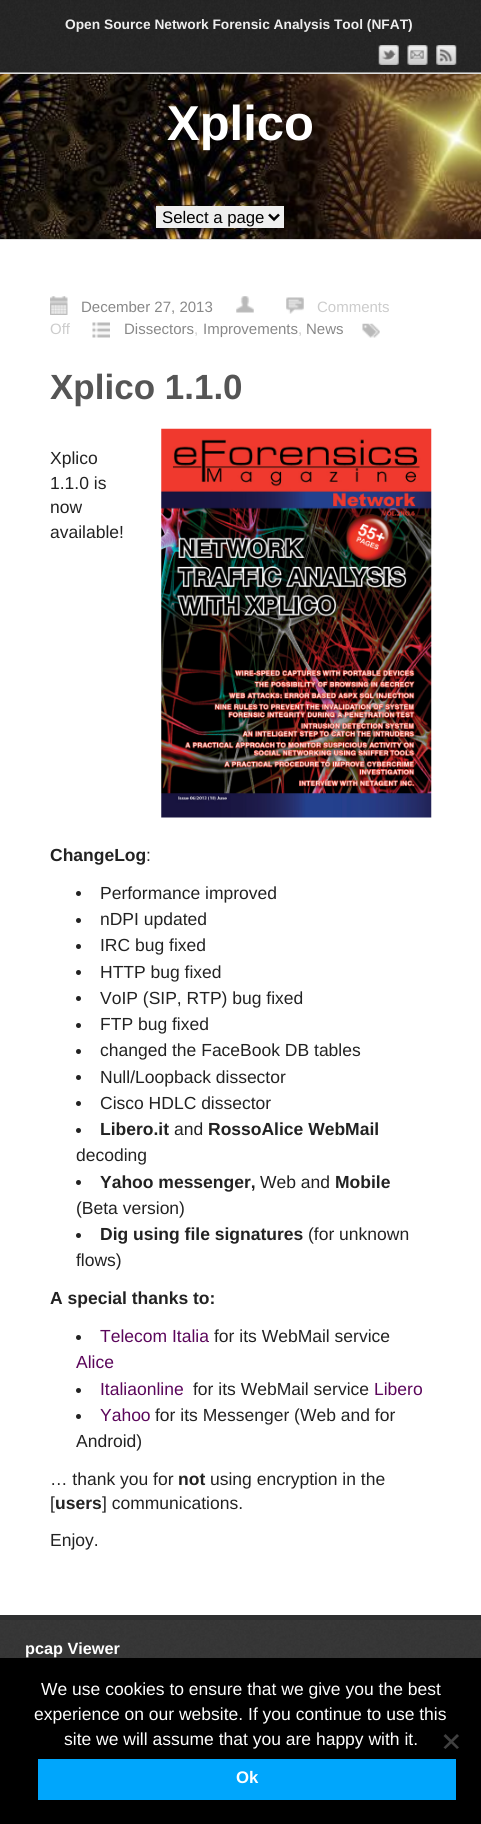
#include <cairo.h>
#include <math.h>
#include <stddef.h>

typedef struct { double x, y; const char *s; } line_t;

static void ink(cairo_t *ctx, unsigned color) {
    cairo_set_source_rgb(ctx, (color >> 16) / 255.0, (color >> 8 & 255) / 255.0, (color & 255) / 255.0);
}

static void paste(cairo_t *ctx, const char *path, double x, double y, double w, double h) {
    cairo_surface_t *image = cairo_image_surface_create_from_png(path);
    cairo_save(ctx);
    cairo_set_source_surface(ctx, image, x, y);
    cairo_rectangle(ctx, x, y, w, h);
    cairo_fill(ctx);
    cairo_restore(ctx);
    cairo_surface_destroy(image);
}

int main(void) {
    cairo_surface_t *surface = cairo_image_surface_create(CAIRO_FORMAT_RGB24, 481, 1824);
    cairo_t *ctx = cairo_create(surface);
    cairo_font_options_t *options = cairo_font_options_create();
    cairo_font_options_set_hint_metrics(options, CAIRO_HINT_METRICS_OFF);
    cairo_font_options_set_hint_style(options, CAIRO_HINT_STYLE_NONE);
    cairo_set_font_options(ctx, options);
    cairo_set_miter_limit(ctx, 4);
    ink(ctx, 0xFFFFFF);
    cairo_paint(ctx);
    paste(ctx, "media/1.png", 0, 0, 481, 73);
    cairo_select_font_face(ctx, "Liberation Sans", CAIRO_FONT_SLANT_NORMAL, CAIRO_FONT_WEIGHT_BOLD);
    cairo_set_font_size(ctx, 13.75);
    ink(ctx, 0xEEEEEE);
    cairo_move_to(ctx, 65, 29);
    cairo_show_text(ctx, "Open Source Network Forensic Analysis Tool (NFAT)");
    paste(ctx, "media/2.png", 378, 45, 21, 20);
    paste(ctx, "media/3.png", 407, 45, 21, 20);
    paste(ctx, "media/4.png", 436, 45, 21, 20);
    paste(ctx, "media/5.png", 0, 74, 481, 165);
    ink(ctx, 0xE1E1E1);
    cairo_rectangle(ctx, 0, 73, 481, 1);
    cairo_fill(ctx);
    cairo_rectangle(ctx, 0, 239, 481, 1);
    cairo_fill(ctx);
    cairo_set_font_size(ctx, 49);
    ink(ctx, 0xFFFFFF);
    cairo_move_to(ctx, 167, 140);
    cairo_show_text(ctx, "Xplico");
    ink(ctx, 0xEFEFEF);
    cairo_rectangle(ctx, 156, 206, 128, 22);
    cairo_fill(ctx);
    cairo_new_path(ctx);
    cairo_move_to(ctx, 269, 214.5);
    cairo_line_to(ctx, 274, 219.5);
    cairo_line_to(ctx, 279, 214.5);
    ink(ctx, 0x000000);
    cairo_set_line_width(ctx, 2.5);
    cairo_stroke(ctx);
    cairo_select_font_face(ctx, "Liberation Sans", CAIRO_FONT_SLANT_NORMAL, CAIRO_FONT_WEIGHT_NORMAL);
    cairo_set_font_size(ctx, 16.75);
    cairo_move_to(ctx, 162, 223);
    cairo_show_text(ctx, "Select a page");
    paste(ctx, "media/6.png", 50, 296, 18, 19);
    cairo_set_font_size(ctx, 15);
    ink(ctx, 0x888888);
    cairo_move_to(ctx, 81, 312);
    cairo_show_text(ctx, "December 27, 2013");
    paste(ctx, "media/7.png", 236, 296, 18, 17);
    paste(ctx, "media/8.png", 286, 297, 18, 17);
    ink(ctx, 0xCCCCCC);
    cairo_move_to(ctx, 317, 312);
    cairo_show_text(ctx, "Comments");
    cairo_move_to(ctx, 50, 334);
    cairo_show_text(ctx, "Off");
    paste(ctx, "media/9.png", 92, 322, 18, 16);
    ink(ctx, 0x888888);
    cairo_move_to(ctx, 124, 334);
    cairo_show_text(ctx, "Dissectors");
    ink(ctx, 0xCCCCCC);
    cairo_move_to(ctx, 194, 334);
    cairo_show_text(ctx, ",");
    ink(ctx, 0x888888);
    cairo_move_to(ctx, 203, 334);
    cairo_show_text(ctx, "Improvements");
    ink(ctx, 0xCCCCCC);
    cairo_move_to(ctx, 298, 334);
    cairo_show_text(ctx, ",");
    ink(ctx, 0x888888);
    cairo_move_to(ctx, 306, 334);
    cairo_show_text(ctx, "News");
    paste(ctx, "media/10.png", 362, 323, 18, 15);
    cairo_select_font_face(ctx, "Liberation Sans", CAIRO_FONT_SLANT_NORMAL, CAIRO_FONT_WEIGHT_BOLD);
    cairo_set_font_size(ctx, 35);
    ink(ctx, 0x555555);
    cairo_move_to(ctx, 50, 399);
    cairo_show_text(ctx, "Xplico 1.1.0");
    cairo_select_font_face(ctx, "Liberation Sans", CAIRO_FONT_SLANT_NORMAL, CAIRO_FONT_WEIGHT_NORMAL);
    cairo_set_font_size(ctx, 17.5);
    ink(ctx, 0x222222);
    cairo_move_to(ctx, 50, 464);
    cairo_show_text(ctx, "Xplico");
    paste(ctx, "media/11.png", 161, 428, 271, 390);
    {
        static const line_t items[] = {
            {50, 489, "1.1.0 is"},
            {50, 513, "now"},
            {50, 538, "available!"},
        };
        for (size_t i = 0; i < sizeof items / sizeof *items; i++) {
            cairo_move_to(ctx, items[i].x, items[i].y);
            cairo_show_text(ctx, items[i].s);
        }
    }
    cairo_select_font_face(ctx, "Liberation Sans", CAIRO_FONT_SLANT_NORMAL, CAIRO_FONT_WEIGHT_BOLD);
    cairo_move_to(ctx, 50, 861);
    cairo_show_text(ctx, "ChangeLog");
    cairo_select_font_face(ctx, "Liberation Sans", CAIRO_FONT_SLANT_NORMAL, CAIRO_FONT_WEIGHT_NORMAL);
    cairo_move_to(ctx, 146, 861);
    cairo_show_text(ctx, ":");
    cairo_new_path(ctx);
    cairo_arc(ctx, 78.5, 893.5, 2.5, 0, 2 * M_PI);
    cairo_fill(ctx);
    cairo_move_to(ctx, 100, 899);
    cairo_show_text(ctx, "Performance improved");
    cairo_new_path(ctx);
    cairo_arc(ctx, 78.5, 920.5, 2.5, 0, 2 * M_PI);
    cairo_fill(ctx);
    cairo_move_to(ctx, 100, 925);
    cairo_show_text(ctx, "nDPI updated");
    cairo_new_path(ctx);
    cairo_arc(ctx, 78.5, 946.5, 2.5, 0, 2 * M_PI);
    cairo_fill(ctx);
    cairo_move_to(ctx, 100, 951);
    cairo_show_text(ctx, "IRC bug fixed");
    cairo_new_path(ctx);
    cairo_arc(ctx, 78.5, 972.5, 2.5, 0, 2 * M_PI);
    cairo_fill(ctx);
    cairo_move_to(ctx, 100, 978);
    cairo_show_text(ctx, "HTTP bug fixed");
    cairo_new_path(ctx);
    cairo_arc(ctx, 78.5, 998.5, 2.5, 0, 2 * M_PI);
    cairo_fill(ctx);
    cairo_move_to(ctx, 100, 1004);
    cairo_show_text(ctx, "VoIP (SIP, RTP) bug fixed");
    cairo_new_path(ctx);
    cairo_arc(ctx, 78.5, 1025.5, 2.5, 0, 2 * M_PI);
    cairo_fill(ctx);
    cairo_move_to(ctx, 100, 1030);
    cairo_show_text(ctx, "FTP bug fixed");
    cairo_new_path(ctx);
    cairo_arc(ctx, 78.5, 1051.5, 2.5, 0, 2 * M_PI);
    cairo_fill(ctx);
    cairo_move_to(ctx, 100, 1056);
    cairo_show_text(ctx, "changed the FaceBook DB tables");
    cairo_new_path(ctx);
    cairo_arc(ctx, 78.5, 1077.5, 2.5, 0, 2 * M_PI);
    cairo_fill(ctx);
    cairo_move_to(ctx, 100, 1083);
    cairo_show_text(ctx, "Null/Loopback dissector");
    cairo_new_path(ctx);
    cairo_arc(ctx, 78.5, 1103.5, 2.5, 0, 2 * M_PI);
    cairo_fill(ctx);
    cairo_move_to(ctx, 100, 1109);
    cairo_show_text(ctx, "Cisco HDLC dissector");
    cairo_new_path(ctx);
    cairo_arc(ctx, 78.5, 1130.5, 2.5, 0, 2 * M_PI);
    cairo_fill(ctx);
    cairo_select_font_face(ctx, "Liberation Sans", CAIRO_FONT_SLANT_NORMAL, CAIRO_FONT_WEIGHT_BOLD);
    cairo_move_to(ctx, 100, 1135);
    cairo_show_text(ctx, "Libero.it");
    cairo_select_font_face(ctx, "Liberation Sans", CAIRO_FONT_SLANT_NORMAL, CAIRO_FONT_WEIGHT_NORMAL);
    cairo_move_to(ctx, 174, 1135);
    cairo_show_text(ctx, "and");
    cairo_select_font_face(ctx, "Liberation Sans", CAIRO_FONT_SLANT_NORMAL, CAIRO_FONT_WEIGHT_BOLD);
    cairo_move_to(ctx, 208, 1135);
    cairo_show_text(ctx, "RossoAlice WebMail");
    cairo_select_font_face(ctx, "Liberation Sans", CAIRO_FONT_SLANT_NORMAL, CAIRO_FONT_WEIGHT_NORMAL);
    cairo_move_to(ctx, 76, 1161);
    cairo_show_text(ctx, "decoding");
    cairo_new_path(ctx);
    cairo_arc(ctx, 78.5, 1182.5, 2.5, 0, 2 * M_PI);
    cairo_fill(ctx);
    cairo_select_font_face(ctx, "Liberation Sans", CAIRO_FONT_SLANT_NORMAL, CAIRO_FONT_WEIGHT_BOLD);
    cairo_move_to(ctx, 100, 1188);
    cairo_show_text(ctx, "Yahoo messenger,");
    cairo_select_font_face(ctx, "Liberation Sans", CAIRO_FONT_SLANT_NORMAL, CAIRO_FONT_WEIGHT_NORMAL);
    cairo_move_to(ctx, 260, 1188);
    cairo_show_text(ctx, "Web and");
    cairo_select_font_face(ctx, "Liberation Sans", CAIRO_FONT_SLANT_NORMAL, CAIRO_FONT_WEIGHT_BOLD);
    cairo_move_to(ctx, 335, 1188);
    cairo_show_text(ctx, "Mobile");
    cairo_select_font_face(ctx, "Liberation Sans", CAIRO_FONT_SLANT_NORMAL, CAIRO_FONT_WEIGHT_NORMAL);
    cairo_move_to(ctx, 76, 1214);
    cairo_show_text(ctx, "(Beta version)");
    cairo_new_path(ctx);
    cairo_arc(ctx, 78.5, 1235.5, 2.5, 0, 2 * M_PI);
    cairo_fill(ctx);
    cairo_select_font_face(ctx, "Liberation Sans", CAIRO_FONT_SLANT_NORMAL, CAIRO_FONT_WEIGHT_BOLD);
    cairo_move_to(ctx, 100, 1240);
    cairo_show_text(ctx, "Dig using file signatures");
    cairo_select_font_face(ctx, "Liberation Sans", CAIRO_FONT_SLANT_NORMAL, CAIRO_FONT_WEIGHT_NORMAL);
    cairo_move_to(ctx, 308, 1240);
    cairo_show_text(ctx, "(for unknown");
    cairo_move_to(ctx, 76, 1266);
    cairo_show_text(ctx, "flows)");
    cairo_select_font_face(ctx, "Liberation Sans", CAIRO_FONT_SLANT_NORMAL, CAIRO_FONT_WEIGHT_BOLD);
    cairo_move_to(ctx, 50, 1304);
    cairo_show_text(ctx, "A special thanks to:");
    cairo_new_path(ctx);
    cairo_arc(ctx, 78.5, 1337.5, 2.5, 0, 2 * M_PI);
    cairo_fill(ctx);
    cairo_select_font_face(ctx, "Liberation Sans", CAIRO_FONT_SLANT_NORMAL, CAIRO_FONT_WEIGHT_NORMAL);
    ink(ctx, 0x5B065B);
    cairo_move_to(ctx, 100, 1342);
    cairo_show_text(ctx, "Telecom Italia");
    ink(ctx, 0x222222);
    cairo_move_to(ctx, 214, 1342);
    cairo_show_text(ctx, "for its WebMail service");
    ink(ctx, 0x5B065B);
    cairo_move_to(ctx, 76, 1368);
    cairo_show_text(ctx, "Alice");
    ink(ctx, 0x222222);
    cairo_new_path(ctx);
    cairo_arc(ctx, 78.5, 1390.5, 2.5, 0, 2 * M_PI);
    cairo_fill(ctx);
    ink(ctx, 0x5B065B);
    cairo_move_to(ctx, 100, 1395);
    cairo_show_text(ctx, "Italiaonline");
    ink(ctx, 0x222222);
    cairo_move_to(ctx, 193, 1395);
    cairo_show_text(ctx, "for its WebMail service");
    ink(ctx, 0x5B065B);
    cairo_move_to(ctx, 374, 1395);
    cairo_show_text(ctx, "Libero");
    ink(ctx, 0x222222);
    cairo_new_path(ctx);
    cairo_arc(ctx, 78.5, 1416.5, 2.5, 0, 2 * M_PI);
    cairo_fill(ctx);
    ink(ctx, 0x5B065B);
    cairo_move_to(ctx, 100, 1421);
    cairo_show_text(ctx, "Yahoo");
    ink(ctx, 0x222222);
    {
        static const line_t items[] = {
            {155, 1421, "for its Messenger (Web and for"},
            {76, 1447, "Android)"},
            {50, 1485, "… thank you for"},
        };
        for (size_t i = 0; i < sizeof items / sizeof *items; i++) {
            cairo_move_to(ctx, items[i].x, items[i].y);
            cairo_show_text(ctx, items[i].s);
        }
    }
    cairo_select_font_face(ctx, "Liberation Sans", CAIRO_FONT_SLANT_NORMAL, CAIRO_FONT_WEIGHT_BOLD);
    cairo_move_to(ctx, 178, 1485);
    cairo_show_text(ctx, "not");
    cairo_select_font_face(ctx, "Liberation Sans", CAIRO_FONT_SLANT_NORMAL, CAIRO_FONT_WEIGHT_NORMAL);
    cairo_move_to(ctx, 210, 1485);
    cairo_show_text(ctx, "using encryption in the");
    cairo_move_to(ctx, 50, 1509);
    cairo_show_text(ctx, "[");
    cairo_select_font_face(ctx, "Liberation Sans", CAIRO_FONT_SLANT_NORMAL, CAIRO_FONT_WEIGHT_BOLD);
    cairo_move_to(ctx, 55, 1509);
    cairo_show_text(ctx, "users");
    cairo_select_font_face(ctx, "Liberation Sans", CAIRO_FONT_SLANT_NORMAL, CAIRO_FONT_WEIGHT_NORMAL);
    cairo_move_to(ctx, 102, 1509);
    cairo_show_text(ctx, "] communications.");
    cairo_move_to(ctx, 50, 1546);
    cairo_show_text(ctx, "Enjoy.");
    paste(ctx, "media/12.png", 0, 1620, 481, 38);
    ink(ctx, 0x2E2F30);
    cairo_rectangle(ctx, 0, 1615, 481, 5);
    cairo_fill(ctx);
    cairo_select_font_face(ctx, "Liberation Sans", CAIRO_FONT_SLANT_NORMAL, CAIRO_FONT_WEIGHT_BOLD);
    cairo_set_font_size(ctx, 16.25);
    ink(ctx, 0xFFFFFF);
    cairo_move_to(ctx, 25, 1654);
    cairo_show_text(ctx, "pcap Viewer");
    ink(ctx, 0x000000);
    cairo_rectangle(ctx, 0, 1658, 481, 166);
    cairo_fill(ctx);
    cairo_select_font_face(ctx, "Liberation Sans", CAIRO_FONT_SLANT_NORMAL, CAIRO_FONT_WEIGHT_NORMAL);
    cairo_set_font_size(ctx, 17.5);
    ink(ctx, 0xFFFFFF);
    {
        static const line_t items[] = {
            {41, 1695, "We use cookies to ensure that we give you the best"},
            {34, 1720, "experience on our website. If you continue to use this"},
            {64, 1745, "site we will assume that you are happy with it."},
        };
        for (size_t i = 0; i < sizeof items / sizeof *items; i++) {
            cairo_move_to(ctx, items[i].x, items[i].y);
            cairo_show_text(ctx, items[i].s);
        }
    }
    ink(ctx, 0x404040);
    cairo_new_path(ctx);
    cairo_move_to(ctx, 457, 1734);
    cairo_line_to(ctx, 459, 1736);
    cairo_line_to(ctx, 445.5, 1749);
    cairo_line_to(ctx, 443.5, 1747.5);
    cairo_close_path(ctx);
    cairo_fill(ctx);
    cairo_new_path(ctx);
    cairo_move_to(ctx, 443.5, 1736);
    cairo_line_to(ctx, 445.5, 1734);
    cairo_line_to(ctx, 459, 1747.5);
    cairo_line_to(ctx, 457, 1749);
    cairo_close_path(ctx);
    cairo_fill(ctx);
    ink(ctx, 0x00A6FC);
    cairo_rectangle(ctx, 38, 1759, 418, 41);
    cairo_fill(ctx);
    cairo_select_font_face(ctx, "Liberation Sans", CAIRO_FONT_SLANT_NORMAL, CAIRO_FONT_WEIGHT_BOLD);
    cairo_set_font_size(ctx, 16.75);
    ink(ctx, 0xFFFFFF);
    cairo_move_to(ctx, 236, 1783);
    cairo_show_text(ctx, "Ok");
    cairo_surface_write_to_png(surface, "image.png");
    cairo_font_options_destroy(options);
    cairo_destroy(ctx);
    cairo_surface_destroy(surface);
    return 0;
}
